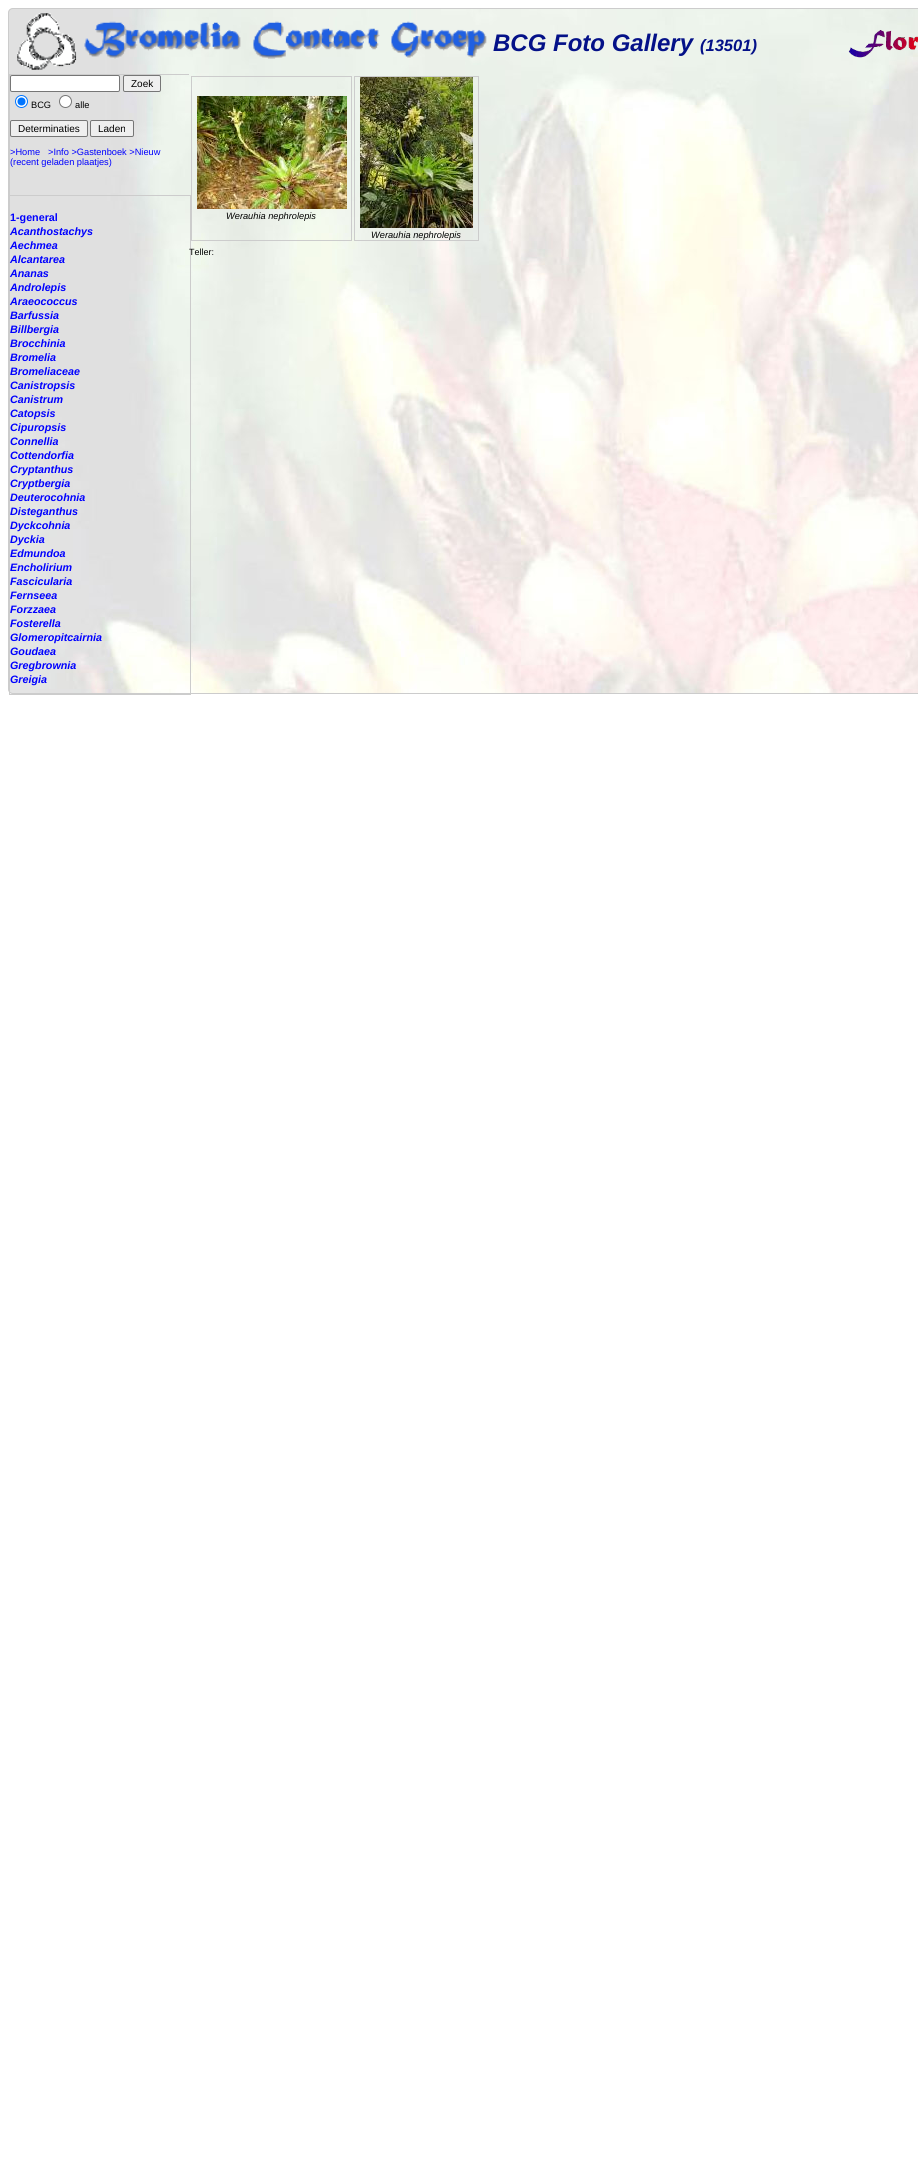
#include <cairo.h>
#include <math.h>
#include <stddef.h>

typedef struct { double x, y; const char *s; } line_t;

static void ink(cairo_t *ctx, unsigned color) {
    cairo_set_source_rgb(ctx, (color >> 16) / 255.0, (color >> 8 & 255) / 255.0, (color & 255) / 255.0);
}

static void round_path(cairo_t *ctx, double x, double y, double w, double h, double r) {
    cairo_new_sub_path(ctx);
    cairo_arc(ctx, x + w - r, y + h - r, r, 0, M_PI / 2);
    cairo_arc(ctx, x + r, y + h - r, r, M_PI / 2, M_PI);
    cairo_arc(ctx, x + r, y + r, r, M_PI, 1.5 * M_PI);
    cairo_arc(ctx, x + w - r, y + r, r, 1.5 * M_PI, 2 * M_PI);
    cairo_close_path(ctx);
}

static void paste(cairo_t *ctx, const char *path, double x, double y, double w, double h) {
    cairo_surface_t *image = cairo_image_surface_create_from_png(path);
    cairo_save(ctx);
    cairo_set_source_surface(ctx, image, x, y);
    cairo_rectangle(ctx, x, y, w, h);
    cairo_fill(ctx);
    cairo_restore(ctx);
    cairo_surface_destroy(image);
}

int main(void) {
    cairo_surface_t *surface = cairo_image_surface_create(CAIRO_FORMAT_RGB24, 918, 2162);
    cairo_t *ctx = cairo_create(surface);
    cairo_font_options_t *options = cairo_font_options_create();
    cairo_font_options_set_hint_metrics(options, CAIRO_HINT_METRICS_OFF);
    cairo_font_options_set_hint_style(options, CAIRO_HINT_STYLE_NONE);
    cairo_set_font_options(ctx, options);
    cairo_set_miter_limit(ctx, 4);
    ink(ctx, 0xFFFFFF);
    cairo_paint(ctx);
    paste(ctx, "media/1.png", 8, 8, 910, 686);
    round_path(ctx, 8.5, 8.5, 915, 685, 4.5);
    ink(ctx, 0xCCCCCC);
    cairo_set_line_width(ctx, 1);
    cairo_stroke(ctx);
    paste(ctx, "media/2.png", 17, 13, 470, 57);
    cairo_select_font_face(ctx, "Liberation Sans", CAIRO_FONT_SLANT_ITALIC, CAIRO_FONT_WEIGHT_BOLD);
    cairo_set_font_size(ctx, 24);
    ink(ctx, 0x041188);
    cairo_move_to(ctx, 493, 51);
    cairo_show_text(ctx, "BCG Foto Gallery");
    cairo_set_font_size(ctx, 16.5);
    cairo_move_to(ctx, 700, 51);
    cairo_show_text(ctx, "(13501)");
    paste(ctx, "media/3.png", 848, 30, 70, 28);
    cairo_save(ctx);
    cairo_rectangle(ctx, 9, 74, 180, 619);
    cairo_clip(ctx);
    cairo_rectangle(ctx, 9.5, 74.5, 181, 121);
    ink(ctx, 0xCCCCCC);
    cairo_stroke(ctx);
    cairo_restore(ctx);
    ink(ctx, 0xFFFFFF);
    round_path(ctx, 10.5, 75.5, 109, 16, 1.5);
    cairo_fill_preserve(ctx);
    ink(ctx, 0x767676);
    cairo_stroke(ctx);
    ink(ctx, 0xEFEFEF);
    round_path(ctx, 123.5, 75.5, 37, 16, 1.5);
    cairo_fill_preserve(ctx);
    ink(ctx, 0x767676);
    cairo_stroke(ctx);
    cairo_select_font_face(ctx, "Liberation Sans", CAIRO_FONT_SLANT_NORMAL, CAIRO_FONT_WEIGHT_NORMAL);
    cairo_set_font_size(ctx, 10);
    ink(ctx, 0x000000);
    cairo_move_to(ctx, 131, 87);
    cairo_show_text(ctx, "Zoek");
    ink(ctx, 0xFFFFFF);
    cairo_new_path(ctx);
    cairo_arc(ctx, 21.5, 101.5, 6, 0, 2 * M_PI);
    cairo_fill_preserve(ctx);
    ink(ctx, 0x0075FF);
    cairo_stroke(ctx);
    cairo_arc(ctx, 21.5, 101.5, 4, 0, 2 * M_PI);
    cairo_fill(ctx);
    cairo_set_font_size(ctx, 9.25);
    ink(ctx, 0x000000);
    cairo_move_to(ctx, 31, 108);
    cairo_show_text(ctx, "BCG");
    ink(ctx, 0xFFFFFF);
    cairo_new_path(ctx);
    cairo_arc(ctx, 65.5, 101.5, 6, 0, 2 * M_PI);
    cairo_fill_preserve(ctx);
    ink(ctx, 0x767676);
    cairo_stroke(ctx);
    ink(ctx, 0x000000);
    cairo_move_to(ctx, 75, 108);
    cairo_show_text(ctx, "alle");
    ink(ctx, 0xEFEFEF);
    round_path(ctx, 10.5, 120.5, 77, 16, 1.5);
    cairo_fill_preserve(ctx);
    ink(ctx, 0x767676);
    cairo_stroke(ctx);
    cairo_set_font_size(ctx, 10);
    ink(ctx, 0x000000);
    cairo_move_to(ctx, 18, 132);
    cairo_show_text(ctx, "Determinaties");
    ink(ctx, 0xEFEFEF);
    round_path(ctx, 90.5, 120.5, 43, 16, 1.5);
    cairo_fill_preserve(ctx);
    ink(ctx, 0x767676);
    cairo_stroke(ctx);
    ink(ctx, 0x000000);
    cairo_move_to(ctx, 98, 132);
    cairo_show_text(ctx, "Laden");
    cairo_set_font_size(ctx, 9.25);
    ink(ctx, 0x0000FF);
    {
        static const line_t items[] = {
            {10, 155, ">Home"},
            {48, 155, ">Info >Gastenboek >Nieuw"},
            {10, 165, "(recent geladen plaatjes)"},
        };
        for (size_t i = 0; i < sizeof items / sizeof *items; i++) {
            cairo_move_to(ctx, items[i].x, items[i].y);
            cairo_show_text(ctx, items[i].s);
        }
    }
    cairo_rectangle(ctx, 9.5, 195.5, 181, 499);
    ink(ctx, 0xCCCCCC);
    cairo_stroke(ctx);
    cairo_select_font_face(ctx, "Liberation Sans", CAIRO_FONT_SLANT_NORMAL, CAIRO_FONT_WEIGHT_BOLD);
    cairo_set_font_size(ctx, 10.75);
    ink(ctx, 0x0000FF);
    cairo_move_to(ctx, 10, 221);
    cairo_show_text(ctx, "1-general");
    cairo_select_font_face(ctx, "Liberation Sans", CAIRO_FONT_SLANT_ITALIC, CAIRO_FONT_WEIGHT_BOLD);
    {
        static const line_t items[] = {
            {10, 235, "Acanthostachys"},
            {10, 249, "Aechmea"},
            {10, 263, "Alcantarea"},
            {10, 277, "Ananas"},
            {10, 291, "Androlepis"},
            {10, 305, "Araeococcus"},
            {10, 319, "Barfussia"},
            {10, 333, "Billbergia"},
            {10, 347, "Brocchinia"},
            {10, 361, "Bromelia"},
            {10, 375, "Bromeliaceae"},
            {10, 389, "Canistropsis"},
            {10, 403, "Canistrum"},
            {10, 417, "Catopsis"},
            {10, 431, "Cipuropsis"},
            {10, 445, "Connellia"},
            {10, 459, "Cottendorfia"},
            {10, 473, "Cryptanthus"},
            {10, 487, "Cryptbergia"},
            {10, 501, "Deuterocohnia"},
            {10, 515, "Disteganthus"},
            {10, 529, "Dyckcohnia"},
            {10, 543, "Dyckia"},
            {10, 557, "Edmundoa"},
            {10, 571, "Encholirium"},
            {10, 585, "Fascicularia"},
            {10, 599, "Fernseea"},
            {10, 613, "Forzzaea"},
            {10, 627, "Fosterella"},
            {10, 641, "Glomeropitcairnia"},
            {10, 655, "Goudaea"},
            {10, 669, "Gregbrownia"},
            {10, 683, "Greigia"},
        };
        for (size_t i = 0; i < sizeof items / sizeof *items; i++) {
            cairo_move_to(ctx, items[i].x, items[i].y);
            cairo_show_text(ctx, items[i].s);
        }
    }
    cairo_rectangle(ctx, 191.5, 76.5, 160, 164);
    ink(ctx, 0xCCCCCC);
    cairo_stroke(ctx);
    paste(ctx, "media/4.png", 197, 96, 150, 113);
    cairo_select_font_face(ctx, "Liberation Sans", CAIRO_FONT_SLANT_ITALIC, CAIRO_FONT_WEIGHT_NORMAL);
    cairo_set_font_size(ctx, 9.25);
    ink(ctx, 0x000000);
    cairo_move_to(ctx, 226, 219);
    cairo_show_text(ctx, "Werauhia nephrolepis");
    cairo_rectangle(ctx, 354.5, 76.5, 124, 164);
    ink(ctx, 0xCCCCCC);
    cairo_stroke(ctx);
    paste(ctx, "media/5.png", 360, 77, 113, 151);
    ink(ctx, 0x000000);
    cairo_move_to(ctx, 371, 238);
    cairo_show_text(ctx, "Werauhia nephrolepis");
    cairo_select_font_face(ctx, "Liberation Sans", CAIRO_FONT_SLANT_NORMAL, CAIRO_FONT_WEIGHT_NORMAL);
    cairo_set_font_size(ctx, 9);
    cairo_move_to(ctx, 189, 255);
    cairo_show_text(ctx, "Teller:");
    cairo_surface_write_to_png(surface, "image.png");
    cairo_font_options_destroy(options);
    cairo_destroy(ctx);
    cairo_surface_destroy(surface);
    return 0;
}
